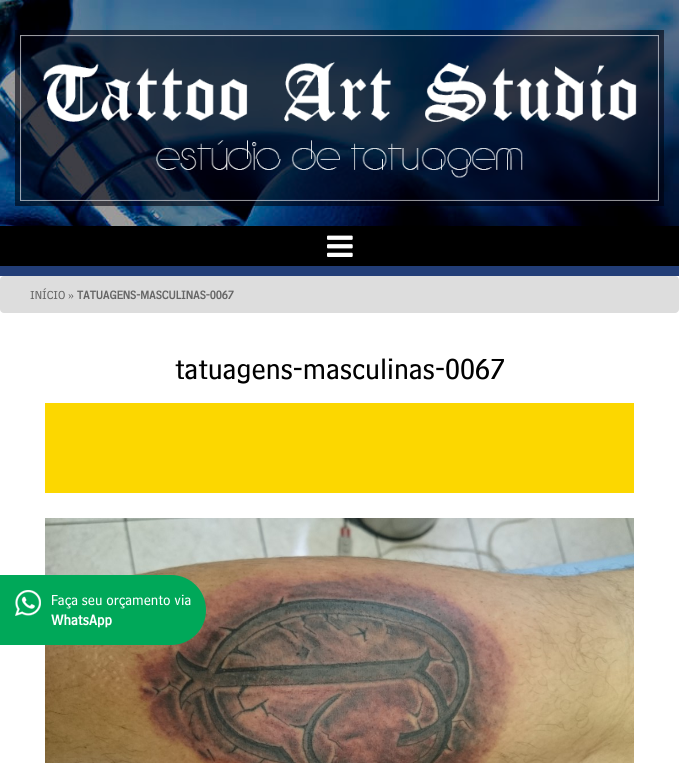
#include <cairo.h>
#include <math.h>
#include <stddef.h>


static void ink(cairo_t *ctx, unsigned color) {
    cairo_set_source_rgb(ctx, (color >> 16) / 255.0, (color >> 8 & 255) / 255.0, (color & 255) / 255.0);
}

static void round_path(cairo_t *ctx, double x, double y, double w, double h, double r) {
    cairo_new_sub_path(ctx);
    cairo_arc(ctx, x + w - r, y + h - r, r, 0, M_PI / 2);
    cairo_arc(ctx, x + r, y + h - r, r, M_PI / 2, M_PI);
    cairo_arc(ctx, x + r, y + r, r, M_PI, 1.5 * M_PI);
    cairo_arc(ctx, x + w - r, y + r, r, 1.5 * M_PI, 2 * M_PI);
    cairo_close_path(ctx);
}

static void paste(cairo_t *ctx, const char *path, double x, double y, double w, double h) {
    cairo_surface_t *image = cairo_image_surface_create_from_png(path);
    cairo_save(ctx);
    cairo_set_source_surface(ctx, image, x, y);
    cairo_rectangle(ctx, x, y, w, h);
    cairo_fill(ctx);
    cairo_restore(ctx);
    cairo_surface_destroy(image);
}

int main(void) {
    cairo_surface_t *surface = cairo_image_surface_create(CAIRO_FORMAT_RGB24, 679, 763);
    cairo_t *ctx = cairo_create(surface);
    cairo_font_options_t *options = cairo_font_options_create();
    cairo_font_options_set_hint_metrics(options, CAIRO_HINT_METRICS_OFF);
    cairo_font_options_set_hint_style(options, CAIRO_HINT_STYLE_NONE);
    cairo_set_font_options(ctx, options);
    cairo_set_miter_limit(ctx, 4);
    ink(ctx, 0xFFFFFF);
    cairo_paint(ctx);
    paste(ctx, "media/1.png", 0, 0, 679, 226);
    paste(ctx, "media/2.png", 15, 30, 649, 176);
    ink(ctx, 0x000000);
    cairo_rectangle(ctx, 0, 226, 679, 40);
    cairo_fill(ctx);
    ink(ctx, 0x223D76);
    cairo_rectangle(ctx, 0, 266, 679, 10);
    cairo_fill(ctx);
    paste(ctx, "media/3.png", 327, 235, 26, 22);
    ink(ctx, 0xDDDDDD);
    round_path(ctx, 0, 276, 679, 37, 4);
    cairo_fill(ctx);
    cairo_select_font_face(ctx, "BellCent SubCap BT", CAIRO_FONT_SLANT_NORMAL, CAIRO_FONT_WEIGHT_NORMAL);
    cairo_set_font_size(ctx, 12);
    ink(ctx, 0x666666);
    cairo_move_to(ctx, 30, 299);
    cairo_show_text(ctx, "INÍCIO");
    cairo_select_font_face(ctx, "Liberation Serif", CAIRO_FONT_SLANT_NORMAL, CAIRO_FONT_WEIGHT_NORMAL);
    cairo_move_to(ctx, 68, 299);
    cairo_show_text(ctx, "»");
    cairo_select_font_face(ctx, "BellCent SubCap BT", CAIRO_FONT_SLANT_NORMAL, CAIRO_FONT_WEIGHT_BOLD);
    cairo_move_to(ctx, 77, 299);
    cairo_show_text(ctx, "TATUAGENS-MASCULINAS-0067");
    cairo_select_font_face(ctx, "BellCent SubCap BT", CAIRO_FONT_SLANT_NORMAL, CAIRO_FONT_WEIGHT_NORMAL);
    cairo_set_font_size(ctx, 30);
    ink(ctx, 0x000000);
    cairo_move_to(ctx, 175, 379);
    cairo_show_text(ctx, "tatuagens-masculinas-0067");
    ink(ctx, 0xFCD700);
    cairo_rectangle(ctx, 45, 403, 589, 90);
    cairo_fill(ctx);
    paste(ctx, "media/4.png", 45, 518, 589, 245);
    ink(ctx, 0x00A859);
    cairo_new_path(ctx);
    cairo_move_to(ctx, 0, 575);
    cairo_line_to(ctx, 171, 575);
    cairo_curve_to(ctx, 190.5, 575, 206, 590.5, 206, 610);
    cairo_curve_to(ctx, 206, 629.5, 190.5, 645, 171, 645);
    cairo_line_to(ctx, 0, 645);
    cairo_close_path(ctx);
    cairo_fill(ctx);
    paste(ctx, "media/5.png", 15, 590, 26, 26);
    cairo_set_font_size(ctx, 15);
    ink(ctx, 0xFFFFFF);
    cairo_move_to(ctx, 51, 605);
    cairo_show_text(ctx, "Faça seu orçamento via");
    cairo_select_font_face(ctx, "BellCent SubCap BT", CAIRO_FONT_SLANT_NORMAL, CAIRO_FONT_WEIGHT_BOLD);
    cairo_move_to(ctx, 51, 625);
    cairo_show_text(ctx, "WhatsApp");
    cairo_surface_write_to_png(surface, "image.png");
    cairo_font_options_destroy(options);
    cairo_destroy(ctx);
    cairo_surface_destroy(surface);
    return 0;
}
